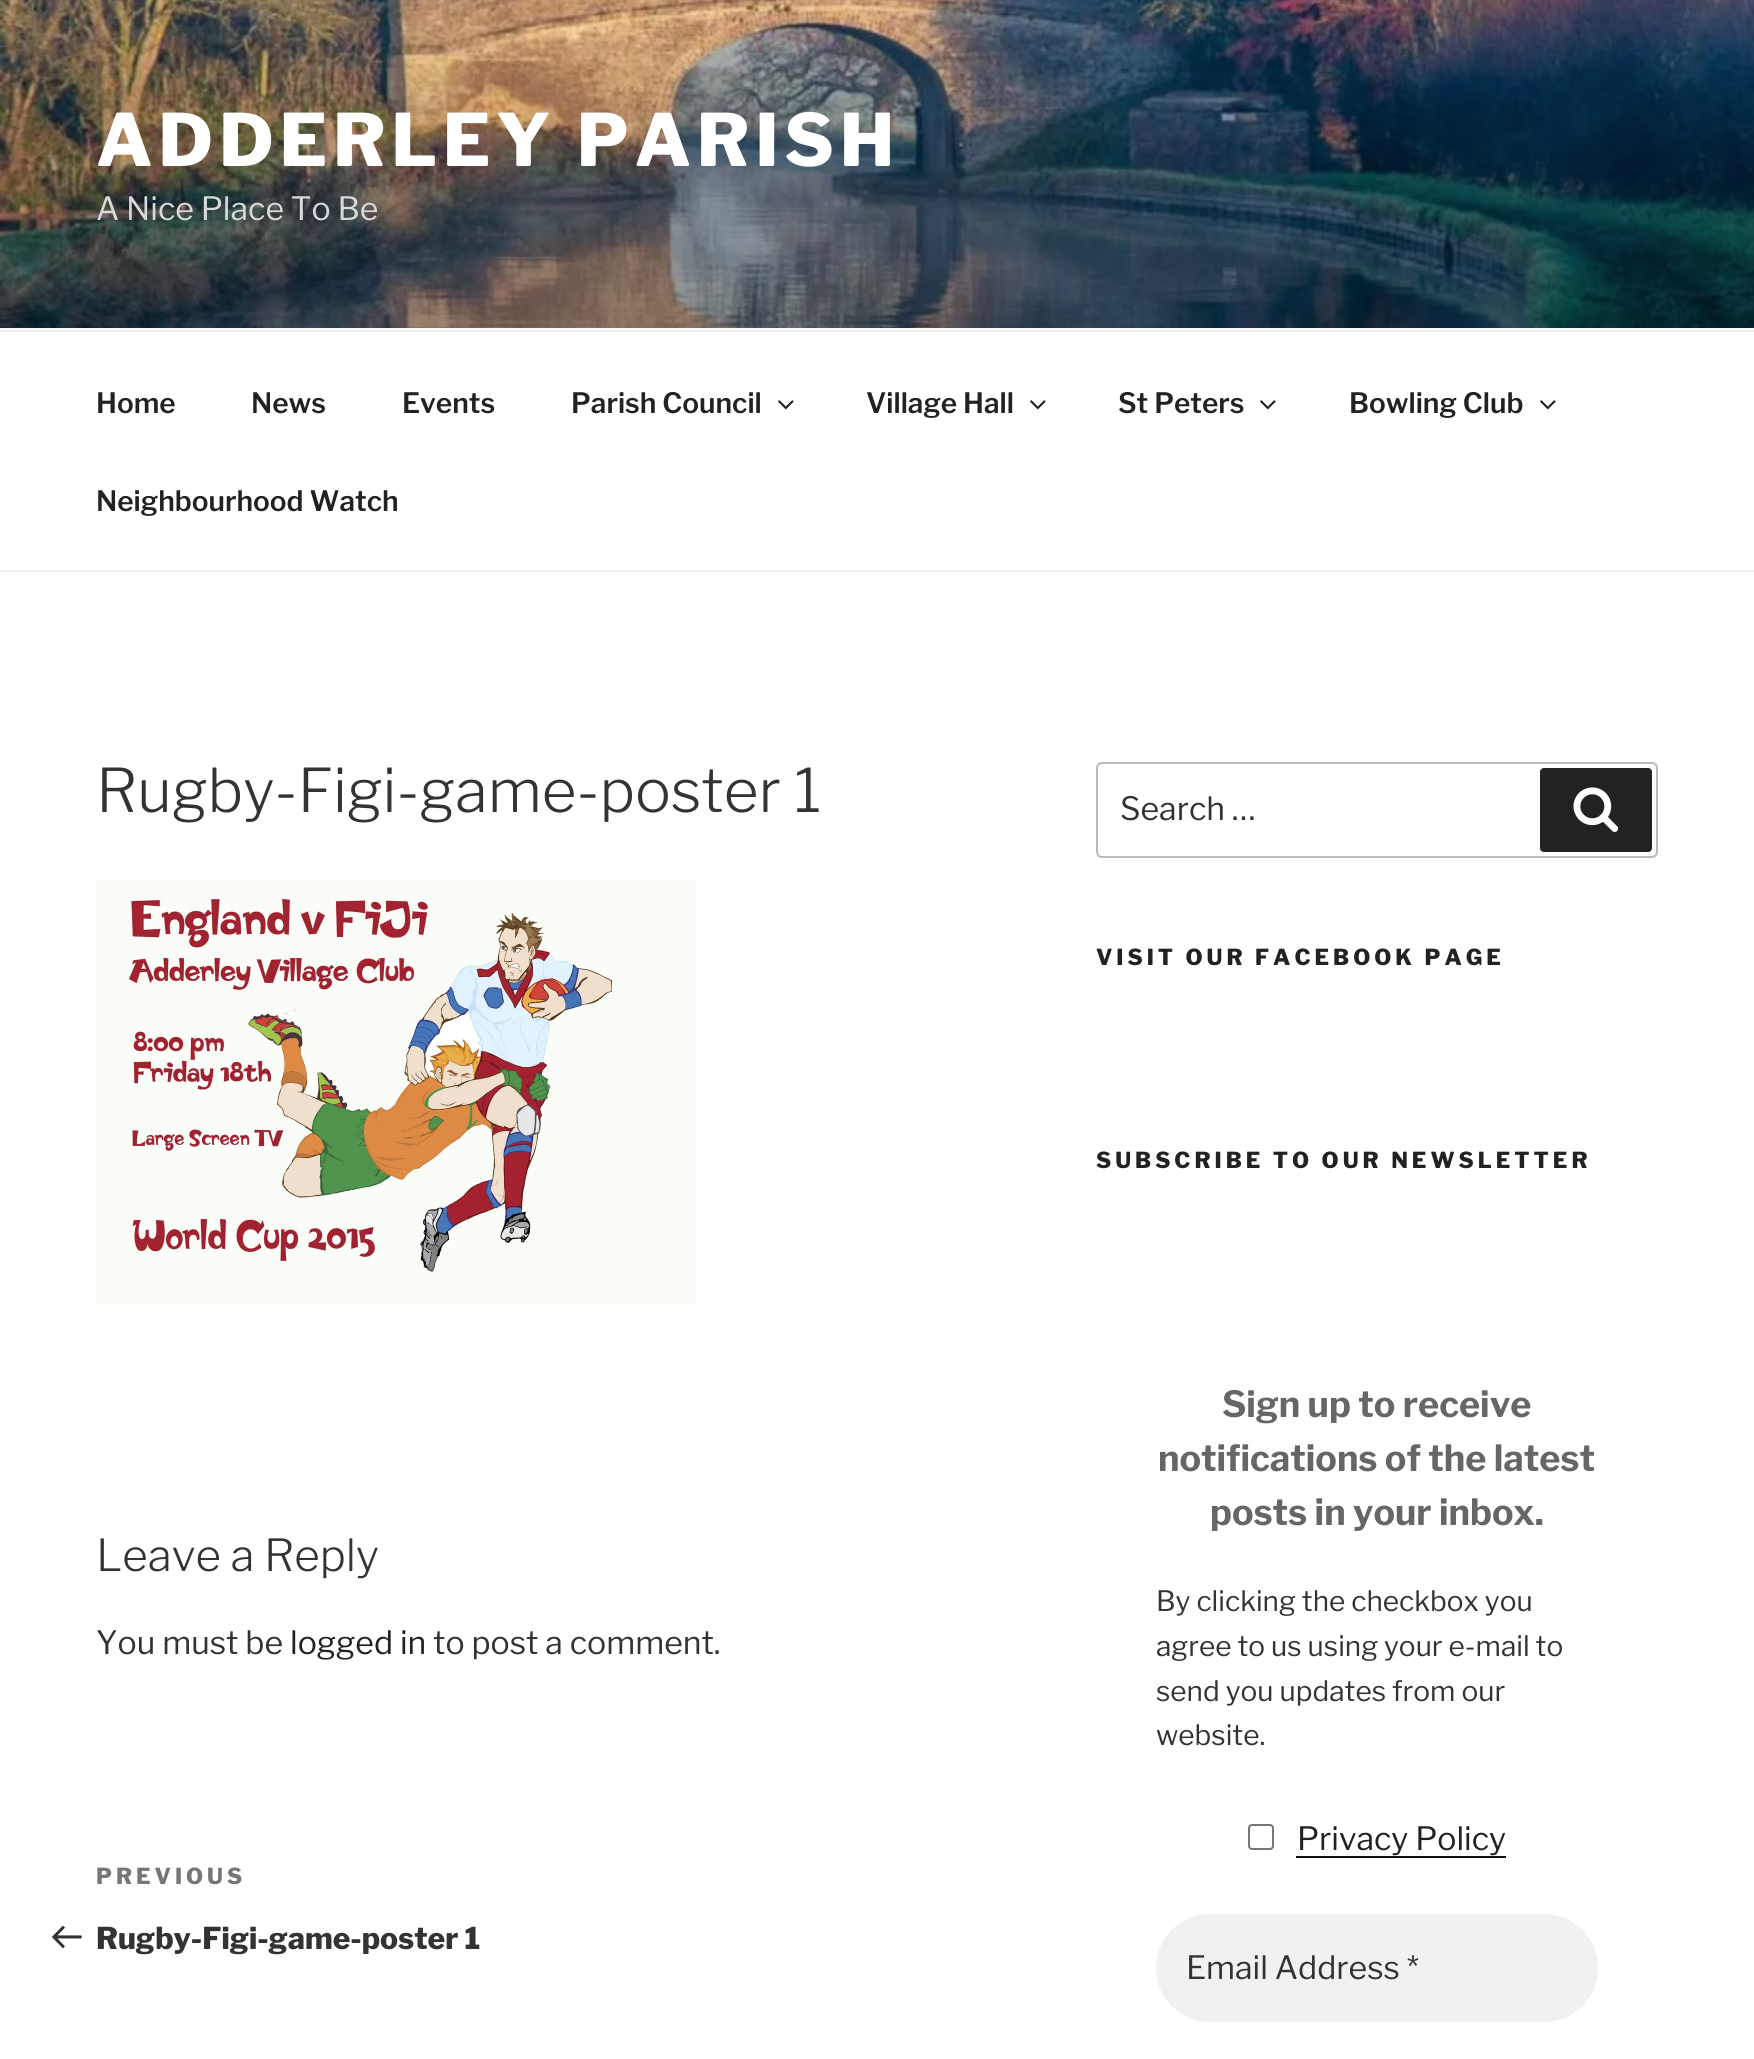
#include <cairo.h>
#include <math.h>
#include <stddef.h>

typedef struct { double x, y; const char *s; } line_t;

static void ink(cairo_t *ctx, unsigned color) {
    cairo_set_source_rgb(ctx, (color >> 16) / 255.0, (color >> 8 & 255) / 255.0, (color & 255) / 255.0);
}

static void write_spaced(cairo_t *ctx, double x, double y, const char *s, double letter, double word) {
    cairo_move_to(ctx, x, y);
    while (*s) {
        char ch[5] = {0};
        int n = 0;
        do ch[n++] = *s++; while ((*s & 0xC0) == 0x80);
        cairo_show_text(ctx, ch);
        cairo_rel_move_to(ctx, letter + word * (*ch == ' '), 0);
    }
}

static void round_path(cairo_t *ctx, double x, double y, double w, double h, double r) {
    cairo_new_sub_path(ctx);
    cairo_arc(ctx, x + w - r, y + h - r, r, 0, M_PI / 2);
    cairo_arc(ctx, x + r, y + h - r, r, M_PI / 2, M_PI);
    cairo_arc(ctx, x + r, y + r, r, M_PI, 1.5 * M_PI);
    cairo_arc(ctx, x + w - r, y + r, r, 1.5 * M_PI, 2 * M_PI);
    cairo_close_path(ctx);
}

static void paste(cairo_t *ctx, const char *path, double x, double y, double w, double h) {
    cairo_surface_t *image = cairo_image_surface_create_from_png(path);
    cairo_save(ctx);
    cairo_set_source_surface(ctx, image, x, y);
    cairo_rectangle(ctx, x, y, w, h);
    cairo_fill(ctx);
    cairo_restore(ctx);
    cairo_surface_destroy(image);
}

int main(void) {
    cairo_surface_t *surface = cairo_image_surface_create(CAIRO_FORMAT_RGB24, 1754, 2059);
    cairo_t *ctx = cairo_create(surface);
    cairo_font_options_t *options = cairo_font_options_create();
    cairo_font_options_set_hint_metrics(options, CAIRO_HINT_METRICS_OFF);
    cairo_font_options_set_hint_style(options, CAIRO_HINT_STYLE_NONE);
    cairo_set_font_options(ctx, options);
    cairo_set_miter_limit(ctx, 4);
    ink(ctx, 0xFFFFFF);
    cairo_paint(ctx);
    ink(ctx, 0xFAFAFA);
    cairo_rectangle(ctx, 0, 328, 1754, 2);
    cairo_fill(ctx);
    paste(ctx, "media/1.png", 0, 0, 1754, 328);
    cairo_select_font_face(ctx, "Libre Franklin Thin", CAIRO_FONT_SLANT_NORMAL, CAIRO_FONT_WEIGHT_NORMAL);
    cairo_set_font_size(ctx, 72);
    ink(ctx, 0xFFFFFF);
    write_spaced(ctx, 96, 166, "ADDERLEY PARISH", 5.75, 0);
    cairo_select_font_face(ctx, "Libre Franklin", CAIRO_FONT_SLANT_NORMAL, CAIRO_FONT_WEIGHT_NORMAL);
    cairo_set_font_size(ctx, 32);
    ink(ctx, 0xD8D9D9);
    cairo_move_to(ctx, 96, 220);
    cairo_show_text(ctx, "A Nice Place To Be");
    ink(ctx, 0xEEEEEE);
    cairo_rectangle(ctx, 0, 330, 1754, 2);
    cairo_fill(ctx);
    cairo_rectangle(ctx, 0, 570, 1754, 2);
    cairo_fill(ctx);
    cairo_select_font_face(ctx, "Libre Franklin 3 Thin", CAIRO_FONT_SLANT_NORMAL, CAIRO_FONT_WEIGHT_NORMAL);
    cairo_set_font_size(ctx, 28);
    ink(ctx, 0x222222);
    {
        static const line_t items[] = {
            {96, 413, "Home"},
            {251, 413, "News"},
            {402, 413, "Events"},
            {571, 413, "Parish Council"},
        };
        for (size_t i = 0; i < sizeof items / sizeof *items; i++) {
            cairo_move_to(ctx, items[i].x, items[i].y);
            cairo_show_text(ctx, items[i].s);
        }
    }
    paste(ctx, "media/2.png", 778, 400, 16, 10);
    cairo_move_to(ctx, 866, 413);
    cairo_show_text(ctx, "Village Hall");
    paste(ctx, "media/2.png", 1030, 400, 16, 10);
    cairo_move_to(ctx, 1118, 413);
    cairo_show_text(ctx, "St Peters");
    paste(ctx, "media/2.png", 1260, 400, 16, 10);
    cairo_move_to(ctx, 1349, 413);
    cairo_show_text(ctx, "Bowling Club");
    paste(ctx, "media/2.png", 1540, 400, 16, 10);
    cairo_move_to(ctx, 96, 511);
    cairo_show_text(ctx, "Neighbourhood Watch");
    cairo_select_font_face(ctx, "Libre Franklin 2 Thin", CAIRO_FONT_SLANT_NORMAL, CAIRO_FONT_WEIGHT_NORMAL);
    cairo_set_font_size(ctx, 60);
    ink(ctx, 0x333333);
    cairo_move_to(ctx, 96, 812);
    cairo_show_text(ctx, "Rugby-Figi-game-poster 1");
    paste(ctx, "media/3.png", 96, 880, 600, 424);
    cairo_set_font_size(ctx, 44);
    cairo_move_to(ctx, 96, 1571);
    cairo_show_text(ctx, "Leave a Reply");
    cairo_select_font_face(ctx, "Libre Franklin", CAIRO_FONT_SLANT_NORMAL, CAIRO_FONT_WEIGHT_NORMAL);
    cairo_set_font_size(ctx, 32);
    cairo_move_to(ctx, 96, 1654);
    cairo_show_text(ctx, "You must be");
    ink(ctx, 0x222222);
    cairo_move_to(ctx, 290, 1654);
    cairo_show_text(ctx, "logged in");
    ink(ctx, 0x333333);
    cairo_move_to(ctx, 433, 1654);
    cairo_show_text(ctx, "to post a comment.");
    cairo_select_font_face(ctx, "Libre Franklin Thin", CAIRO_FONT_SLANT_NORMAL, CAIRO_FONT_WEIGHT_NORMAL);
    cairo_set_font_size(ctx, 22);
    ink(ctx, 0x767676);
    write_spaced(ctx, 96, 1884, "PREVIOUS", 4, 0);
    paste(ctx, "media/4.png", 52, 1925, 30, 24);
    cairo_set_font_size(ctx, 30);
    ink(ctx, 0x333333);
    cairo_move_to(ctx, 96, 1949);
    cairo_show_text(ctx, "Rugby-Figi-game-poster 1");
    round_path(ctx, 1097, 763, 560, 94, 5);
    ink(ctx, 0xBBBBBB);
    cairo_stroke(ctx);
    cairo_select_font_face(ctx, "Libre Franklin", CAIRO_FONT_SLANT_NORMAL, CAIRO_FONT_WEIGHT_NORMAL);
    cairo_set_font_size(ctx, 32);
    ink(ctx, 0x333333);
    cairo_move_to(ctx, 1120, 820);
    cairo_show_text(ctx, "Search …");
    ink(ctx, 0x222222);
    round_path(ctx, 1540, 768, 112, 84, 4);
    cairo_fill(ctx);
    paste(ctx, "media/5.png", 1573, 787, 46, 45);
    cairo_select_font_face(ctx, "Libre Franklin Thin", CAIRO_FONT_SLANT_NORMAL, CAIRO_FONT_WEIGHT_NORMAL);
    cairo_set_font_size(ctx, 22);
    write_spaced(ctx, 1096, 965, "VISIT OUR FACEBOOK PAGE", 4, 0);
    write_spaced(ctx, 1096, 1168, "SUBSCRIBE TO OUR NEWSLETTER", 4, 0);
    cairo_select_font_face(ctx, "Libre Franklin", CAIRO_FONT_SLANT_NORMAL, CAIRO_FONT_WEIGHT_BOLD);
    cairo_set_font_size(ctx, 36);
    ink(ctx, 0x666666);
    {
        static const line_t items[] = {
            {1222, 1417, "Sign up to receive"},
            {1158, 1471, "notifications of the latest"},
            {1210, 1525, "posts in your inbox."},
        };
        for (size_t i = 0; i < sizeof items / sizeof *items; i++) {
            cairo_move_to(ctx, items[i].x, items[i].y);
            cairo_show_text(ctx, items[i].s);
        }
    }
    cairo_select_font_face(ctx, "Libre Franklin", CAIRO_FONT_SLANT_NORMAL, CAIRO_FONT_WEIGHT_NORMAL);
    cairo_set_font_size(ctx, 28);
    ink(ctx, 0x333333);
    {
        static const line_t items[] = {
            {1156, 1611, "By clicking the checkbox you"},
            {1156, 1656, "agree to us using your e-mail to"},
            {1156, 1701, "send you updates from our"},
            {1156, 1745, "website."},
        };
        for (size_t i = 0; i < sizeof items / sizeof *items; i++) {
            cairo_move_to(ctx, items[i].x, items[i].y);
            cairo_show_text(ctx, items[i].s);
        }
    }
    round_path(ctx, 1249, 1825, 24, 24, 3);
    ink(ctx, 0x767676);
    cairo_stroke(ctx);
    cairo_set_font_size(ctx, 32);
    ink(ctx, 0x222222);
    cairo_move_to(ctx, 1297, 1850);
    cairo_show_text(ctx, "Privacy Policy");
    ink(ctx, 0x0F0F0F);
    cairo_rectangle(ctx, 1296, 1856, 210, 2);
    cairo_fill(ctx);
    ink(ctx, 0xF1F1F1);
    round_path(ctx, 1156, 1914, 442, 108, 54);
    cairo_fill(ctx);
    ink(ctx, 0x333333);
    cairo_move_to(ctx, 1186, 1979);
    cairo_show_text(ctx, "Email Address *");
    cairo_surface_write_to_png(surface, "image.png");
    cairo_font_options_destroy(options);
    cairo_destroy(ctx);
    cairo_surface_destroy(surface);
    return 0;
}
